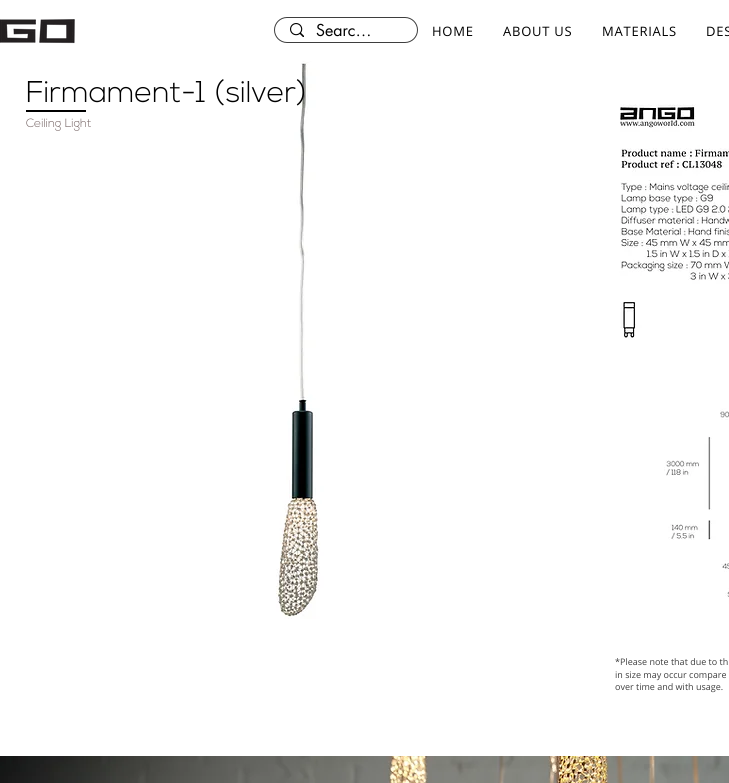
#include <cairo.h>
#include <math.h>
#include <stddef.h>

typedef struct { double x, y; const char *s; } line_t;

static void ink(cairo_t *ctx, unsigned color) {
    cairo_set_source_rgb(ctx, (color >> 16) / 255.0, (color >> 8 & 255) / 255.0, (color & 255) / 255.0);
}

static void write_spaced(cairo_t *ctx, double x, double y, const char *s, double letter, double word) {
    cairo_move_to(ctx, x, y);
    while (*s) {
        char ch[5] = {0};
        int n = 0;
        do ch[n++] = *s++; while ((*s & 0xC0) == 0x80);
        cairo_show_text(ctx, ch);
        cairo_rel_move_to(ctx, letter + word * (*ch == ' '), 0);
    }
}

static void round_path(cairo_t *ctx, double x, double y, double w, double h, double r) {
    cairo_new_sub_path(ctx);
    cairo_arc(ctx, x + w - r, y + h - r, r, 0, M_PI / 2);
    cairo_arc(ctx, x + r, y + h - r, r, M_PI / 2, M_PI);
    cairo_arc(ctx, x + r, y + r, r, M_PI, 1.5 * M_PI);
    cairo_arc(ctx, x + w - r, y + r, r, 1.5 * M_PI, 2 * M_PI);
    cairo_close_path(ctx);
}

static void paste(cairo_t *ctx, const char *path, double x, double y, double w, double h) {
    cairo_surface_t *image = cairo_image_surface_create_from_png(path);
    cairo_save(ctx);
    cairo_set_source_surface(ctx, image, x, y);
    cairo_rectangle(ctx, x, y, w, h);
    cairo_fill(ctx);
    cairo_restore(ctx);
    cairo_surface_destroy(image);
}

int main(void) {
    cairo_surface_t *surface = cairo_image_surface_create(CAIRO_FORMAT_RGB24, 729, 783);
    cairo_t *ctx = cairo_create(surface);
    cairo_font_options_t *options = cairo_font_options_create();
    cairo_font_options_set_hint_metrics(options, CAIRO_HINT_METRICS_OFF);
    cairo_font_options_set_hint_style(options, CAIRO_HINT_STYLE_NONE);
    cairo_set_font_options(ctx, options);
    cairo_set_miter_limit(ctx, 4);
    ink(ctx, 0xFFFFFF);
    cairo_paint(ctx);
    paste(ctx, "media/1.png", 0, 19, 75, 25);
    round_path(ctx, 274.5, 17.5, 143, 25, 12.5);
    ink(ctx, 0x3E3E3E);
    cairo_set_line_width(ctx, 1);
    cairo_stroke(ctx);
    paste(ctx, "media/2.png", 290, 23, 14, 14);
    cairo_select_font_face(ctx, "futura", CAIRO_FONT_SLANT_NORMAL, CAIRO_FONT_WEIGHT_NORMAL);
    cairo_set_font_size(ctx, 16);
    ink(ctx, 0x000000);
    cairo_move_to(ctx, 316, 36);
    cairo_show_text(ctx, "Searc…");
    cairo_select_font_face(ctx, "Open Sans", CAIRO_FONT_SLANT_NORMAL, CAIRO_FONT_WEIGHT_NORMAL);
    cairo_set_font_size(ctx, 13);
    {
        static const line_t items[] = {
            {432, 36, "HOME"},
            {503, 36, "ABOUT US"},
            {602, 36, "MATERIALS"},
            {706, 36, "DES"},
        };
        for (size_t i = 0; i < sizeof items / sizeof *items; i++) {
            write_spaced(ctx, items[i].x, items[i].y, items[i].s, 0.75, 0);
        }
    }
    paste(ctx, "media/3.png", 276, 61, 453, 558);
    cairo_select_font_face(ctx, "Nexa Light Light", CAIRO_FONT_SLANT_NORMAL, CAIRO_FONT_WEIGHT_NORMAL);
    cairo_set_font_size(ctx, 30);
    cairo_move_to(ctx, 26, 102);
    cairo_show_text(ctx, "Firmament-1 (silver)");
    cairo_rectangle(ctx, 26, 110, 60, 2);
    cairo_fill(ctx);
    cairo_set_font_size(ctx, 12);
    ink(ctx, 0x756464);
    cairo_move_to(ctx, 26, 127);
    cairo_show_text(ctx, "Ceiling Light");
    cairo_select_font_face(ctx, "Open Sans", CAIRO_FONT_SLANT_NORMAL, CAIRO_FONT_WEIGHT_NORMAL);
    cairo_set_font_size(ctx, 9);
    ink(ctx, 0x3E3E3E);
    {
        static const line_t items[] = {
            {615, 665, "*Please note that due to th"},
            {615, 678, "in size may occur compare"},
            {615, 690, "over time and with usage."},
        };
        for (size_t i = 0; i < sizeof items / sizeof *items; i++) {
            cairo_move_to(ctx, items[i].x, items[i].y);
            cairo_show_text(ctx, items[i].s);
        }
    }
    paste(ctx, "media/4.png", 0, 756, 729, 27);
    cairo_surface_write_to_png(surface, "image.png");
    cairo_font_options_destroy(options);
    cairo_destroy(ctx);
    cairo_surface_destroy(surface);
    return 0;
}
